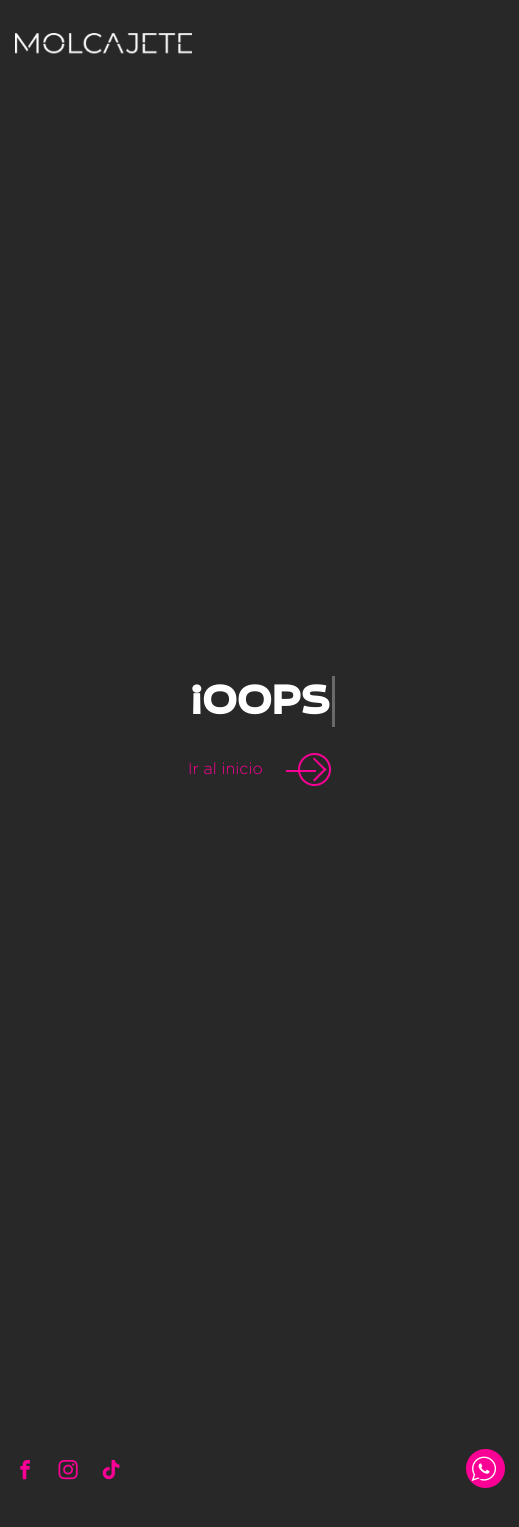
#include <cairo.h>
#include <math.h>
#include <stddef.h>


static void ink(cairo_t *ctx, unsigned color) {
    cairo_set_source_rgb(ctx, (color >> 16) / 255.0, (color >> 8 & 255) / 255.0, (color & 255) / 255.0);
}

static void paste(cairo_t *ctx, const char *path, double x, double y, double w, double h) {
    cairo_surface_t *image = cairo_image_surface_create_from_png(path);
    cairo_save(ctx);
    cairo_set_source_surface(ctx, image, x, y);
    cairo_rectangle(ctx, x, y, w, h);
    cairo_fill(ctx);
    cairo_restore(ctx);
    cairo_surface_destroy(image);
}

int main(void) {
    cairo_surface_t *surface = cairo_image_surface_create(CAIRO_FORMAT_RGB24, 519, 1527);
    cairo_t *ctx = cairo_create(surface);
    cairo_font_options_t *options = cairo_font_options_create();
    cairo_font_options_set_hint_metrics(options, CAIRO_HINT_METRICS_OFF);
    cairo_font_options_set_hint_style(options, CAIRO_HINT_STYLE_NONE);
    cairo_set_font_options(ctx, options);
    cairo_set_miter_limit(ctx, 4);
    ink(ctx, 0x282828);
    cairo_paint(ctx);
    paste(ctx, "media/1.png", 15, 33, 177, 21);
    cairo_select_font_face(ctx, "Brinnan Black", CAIRO_FONT_SLANT_NORMAL, CAIRO_FONT_WEIGHT_NORMAL);
    cairo_set_font_size(ctx, 43);
    ink(ctx, 0xFFFFFF);
    cairo_move_to(ctx, 191, 714);
    cairo_show_text(ctx, "¡OOPS");
    ink(ctx, 0x696969);
    cairo_rectangle(ctx, 332, 676, 3, 51);
    cairo_fill(ctx);
    cairo_select_font_face(ctx, "Gotham Light", CAIRO_FONT_SLANT_NORMAL, CAIRO_FONT_WEIGHT_NORMAL);
    cairo_set_font_size(ctx, 16);
    ink(ctx, 0xFB0094);
    cairo_move_to(ctx, 188, 774);
    cairo_show_text(ctx, "Ir al inicio");
    cairo_new_path(ctx);
    cairo_arc(ctx, 314.5, 769.5, 15.5, 0, 2 * M_PI);
    cairo_stroke(ctx);
    cairo_rectangle(ctx, 286, 770, 30, 2);
    cairo_fill(ctx);
    cairo_new_path(ctx);
    cairo_move_to(ctx, 314, 757.5);
    cairo_line_to(ctx, 326.5, 769.5);
    cairo_line_to(ctx, 325, 771);
    cairo_line_to(ctx, 313, 759);
    cairo_close_path(ctx);
    cairo_fill(ctx);
    cairo_new_path(ctx);
    cairo_move_to(ctx, 325, 768);
    cairo_line_to(ctx, 326.5, 769.5);
    cairo_line_to(ctx, 314.5, 781.5);
    cairo_line_to(ctx, 313, 780);
    cairo_close_path(ctx);
    cairo_fill(ctx);
    paste(ctx, "media/2.png", 20, 1460, 10, 20);
    paste(ctx, "media/3.png", 58, 1460, 20, 20);
    paste(ctx, "media/4.png", 102, 1460, 18, 20);
    cairo_arc(ctx, 485.5, 1468.5, 19.5, 0, 2 * M_PI);
    cairo_fill(ctx);
    paste(ctx, "media/5.png", 471, 1456, 26, 25);
    paste(ctx, "media/6.png", 478, 1463, 12, 11);
    cairo_surface_write_to_png(surface, "image.png");
    cairo_font_options_destroy(options);
    cairo_destroy(ctx);
    cairo_surface_destroy(surface);
    return 0;
}
